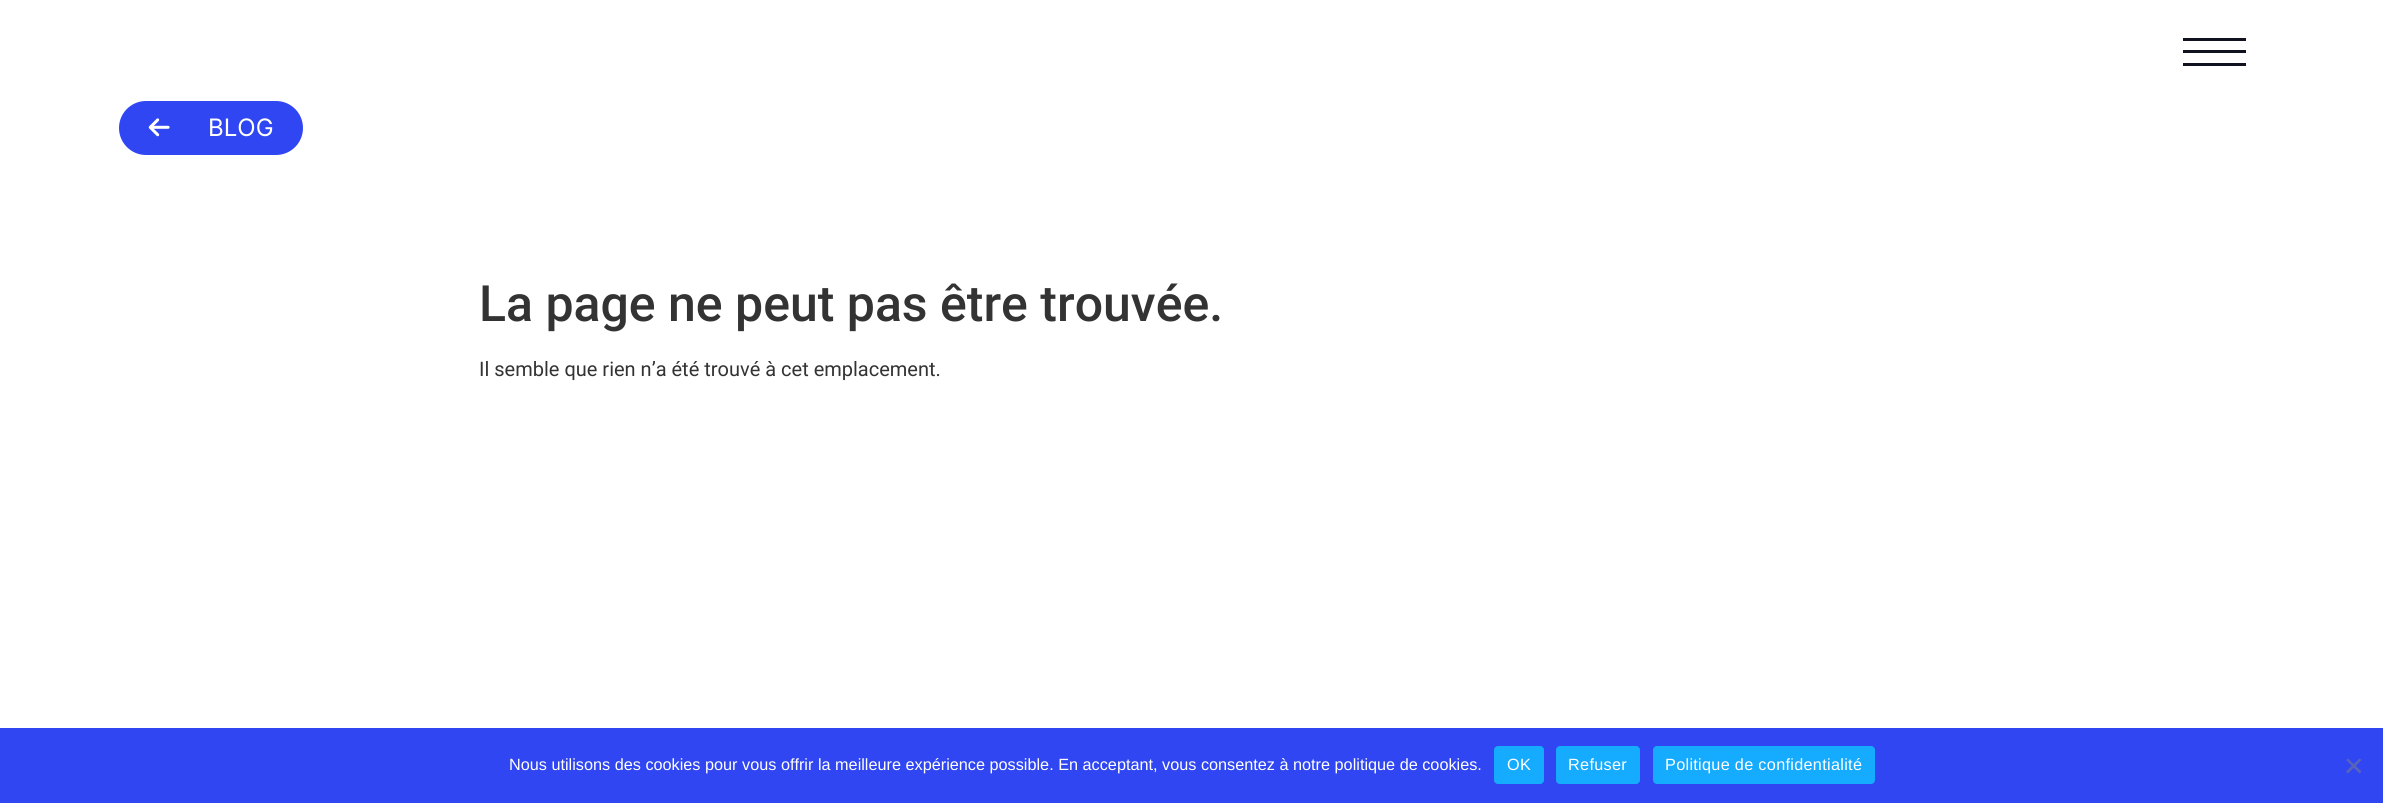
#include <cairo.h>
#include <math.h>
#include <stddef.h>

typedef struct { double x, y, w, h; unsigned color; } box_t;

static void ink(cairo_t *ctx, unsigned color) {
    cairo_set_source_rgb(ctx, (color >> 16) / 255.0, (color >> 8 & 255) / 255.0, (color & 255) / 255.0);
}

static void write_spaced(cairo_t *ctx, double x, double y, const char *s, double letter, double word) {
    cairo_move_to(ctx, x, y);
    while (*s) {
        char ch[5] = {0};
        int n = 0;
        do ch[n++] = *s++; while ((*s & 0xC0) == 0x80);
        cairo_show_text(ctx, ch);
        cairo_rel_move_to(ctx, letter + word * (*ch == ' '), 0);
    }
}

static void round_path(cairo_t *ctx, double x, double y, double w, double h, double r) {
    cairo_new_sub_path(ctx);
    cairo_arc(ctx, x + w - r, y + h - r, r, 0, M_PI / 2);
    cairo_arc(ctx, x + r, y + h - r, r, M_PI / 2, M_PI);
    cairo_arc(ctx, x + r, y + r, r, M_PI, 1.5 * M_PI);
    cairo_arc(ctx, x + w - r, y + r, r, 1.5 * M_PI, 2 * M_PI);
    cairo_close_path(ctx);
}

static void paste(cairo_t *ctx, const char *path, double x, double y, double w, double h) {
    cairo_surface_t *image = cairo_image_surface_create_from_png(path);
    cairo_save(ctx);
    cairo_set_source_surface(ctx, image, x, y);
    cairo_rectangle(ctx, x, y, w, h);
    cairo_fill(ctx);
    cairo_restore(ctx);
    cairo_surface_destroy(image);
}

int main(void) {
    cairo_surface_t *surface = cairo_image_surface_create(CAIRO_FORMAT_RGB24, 2383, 803);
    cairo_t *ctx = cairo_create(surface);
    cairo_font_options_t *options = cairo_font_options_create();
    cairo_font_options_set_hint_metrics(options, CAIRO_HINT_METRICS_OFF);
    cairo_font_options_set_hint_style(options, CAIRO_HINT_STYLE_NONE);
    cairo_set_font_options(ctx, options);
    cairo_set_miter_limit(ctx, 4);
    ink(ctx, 0xFFFFFF);
    cairo_paint(ctx);
    {
        static const box_t items[] = {
            {2183, 50, 63, 3, 0x10121F},
            {2183, 38, 63, 3, 0x10121F},
            {2183, 63, 63, 3, 0x10121F},
        };
        for (size_t i = 0; i < sizeof items / sizeof *items; i++) {
            ink(ctx, items[i].color);
            cairo_rectangle(ctx, items[i].x, items[i].y, items[i].w, items[i].h);
            cairo_fill(ctx);
        }
    }
    ink(ctx, 0x2F46F2);
    round_path(ctx, 119, 101, 184, 54, 27);
    cairo_fill(ctx);
    paste(ctx, "media/1.png", 148, 118, 22, 19);
    cairo_select_font_face(ctx, "Inter", CAIRO_FONT_SLANT_NORMAL, CAIRO_FONT_WEIGHT_NORMAL);
    cairo_set_font_size(ctx, 24);
    ink(ctx, 0xFFFFFF);
    cairo_move_to(ctx, 208, 136);
    cairo_show_text(ctx, "BLOG");
    cairo_select_font_face(ctx, "Roboto Medium", CAIRO_FONT_SLANT_NORMAL, CAIRO_FONT_WEIGHT_NORMAL);
    cairo_set_font_size(ctx, 50);
    ink(ctx, 0x333333);
    cairo_move_to(ctx, 479, 321);
    cairo_show_text(ctx, "La page ne peut pas être trouvée.");
    cairo_select_font_face(ctx, "Roboto", CAIRO_FONT_SLANT_NORMAL, CAIRO_FONT_WEIGHT_NORMAL);
    cairo_set_font_size(ctx, 20);
    cairo_move_to(ctx, 479, 376);
    cairo_show_text(ctx, "Il semble que rien n’a été trouvé à cet emplacement.");
    ink(ctx, 0x2F46F2);
    cairo_rectangle(ctx, 0, 728, 2383, 75);
    cairo_fill(ctx);
    cairo_select_font_face(ctx, "Liberation Sans", CAIRO_FONT_SLANT_NORMAL, CAIRO_FONT_WEIGHT_NORMAL);
    cairo_set_font_size(ctx, 16.25);
    ink(ctx, 0xFFFFFF);
    cairo_move_to(ctx, 509, 770);
    cairo_show_text(ctx, "Nous utilisons des cookies pour vous offrir la meilleure expérience possible. En acceptant, vous consentez à notre politique de cookies.");
    ink(ctx, 0x15ABFF);
    round_path(ctx, 1494, 746, 50, 38, 4);
    cairo_fill(ctx);
    ink(ctx, 0xFFFFFF);
    write_spaced(ctx, 1507, 770, "OK", 0.3, 0);
    ink(ctx, 0x15ABFF);
    round_path(ctx, 1556, 746, 84, 38, 4);
    cairo_fill(ctx);
    ink(ctx, 0xFFFFFF);
    write_spaced(ctx, 1568, 770, "Refuser", 0.3, 0);
    ink(ctx, 0x15ABFF);
    round_path(ctx, 1653, 746, 222, 38, 4);
    cairo_fill(ctx);
    ink(ctx, 0xFFFFFF);
    write_spaced(ctx, 1665, 770, "Politique de confidentialité", 0.3, 0);
    ink(ctx, 0x5863B9);
    cairo_new_path(ctx);
    cairo_move_to(ctx, 2359.5, 758.5);
    cairo_line_to(ctx, 2361.5, 760);
    cairo_line_to(ctx, 2348, 773.5);
    cairo_line_to(ctx, 2346, 771.5);
    cairo_close_path(ctx);
    cairo_fill(ctx);
    cairo_new_path(ctx);
    cairo_move_to(ctx, 2346, 760);
    cairo_line_to(ctx, 2348, 758.5);
    cairo_line_to(ctx, 2361.5, 771.5);
    cairo_line_to(ctx, 2359.5, 773.5);
    cairo_close_path(ctx);
    cairo_fill(ctx);
    cairo_surface_write_to_png(surface, "image.png");
    cairo_font_options_destroy(options);
    cairo_destroy(ctx);
    cairo_surface_destroy(surface);
    return 0;
}
